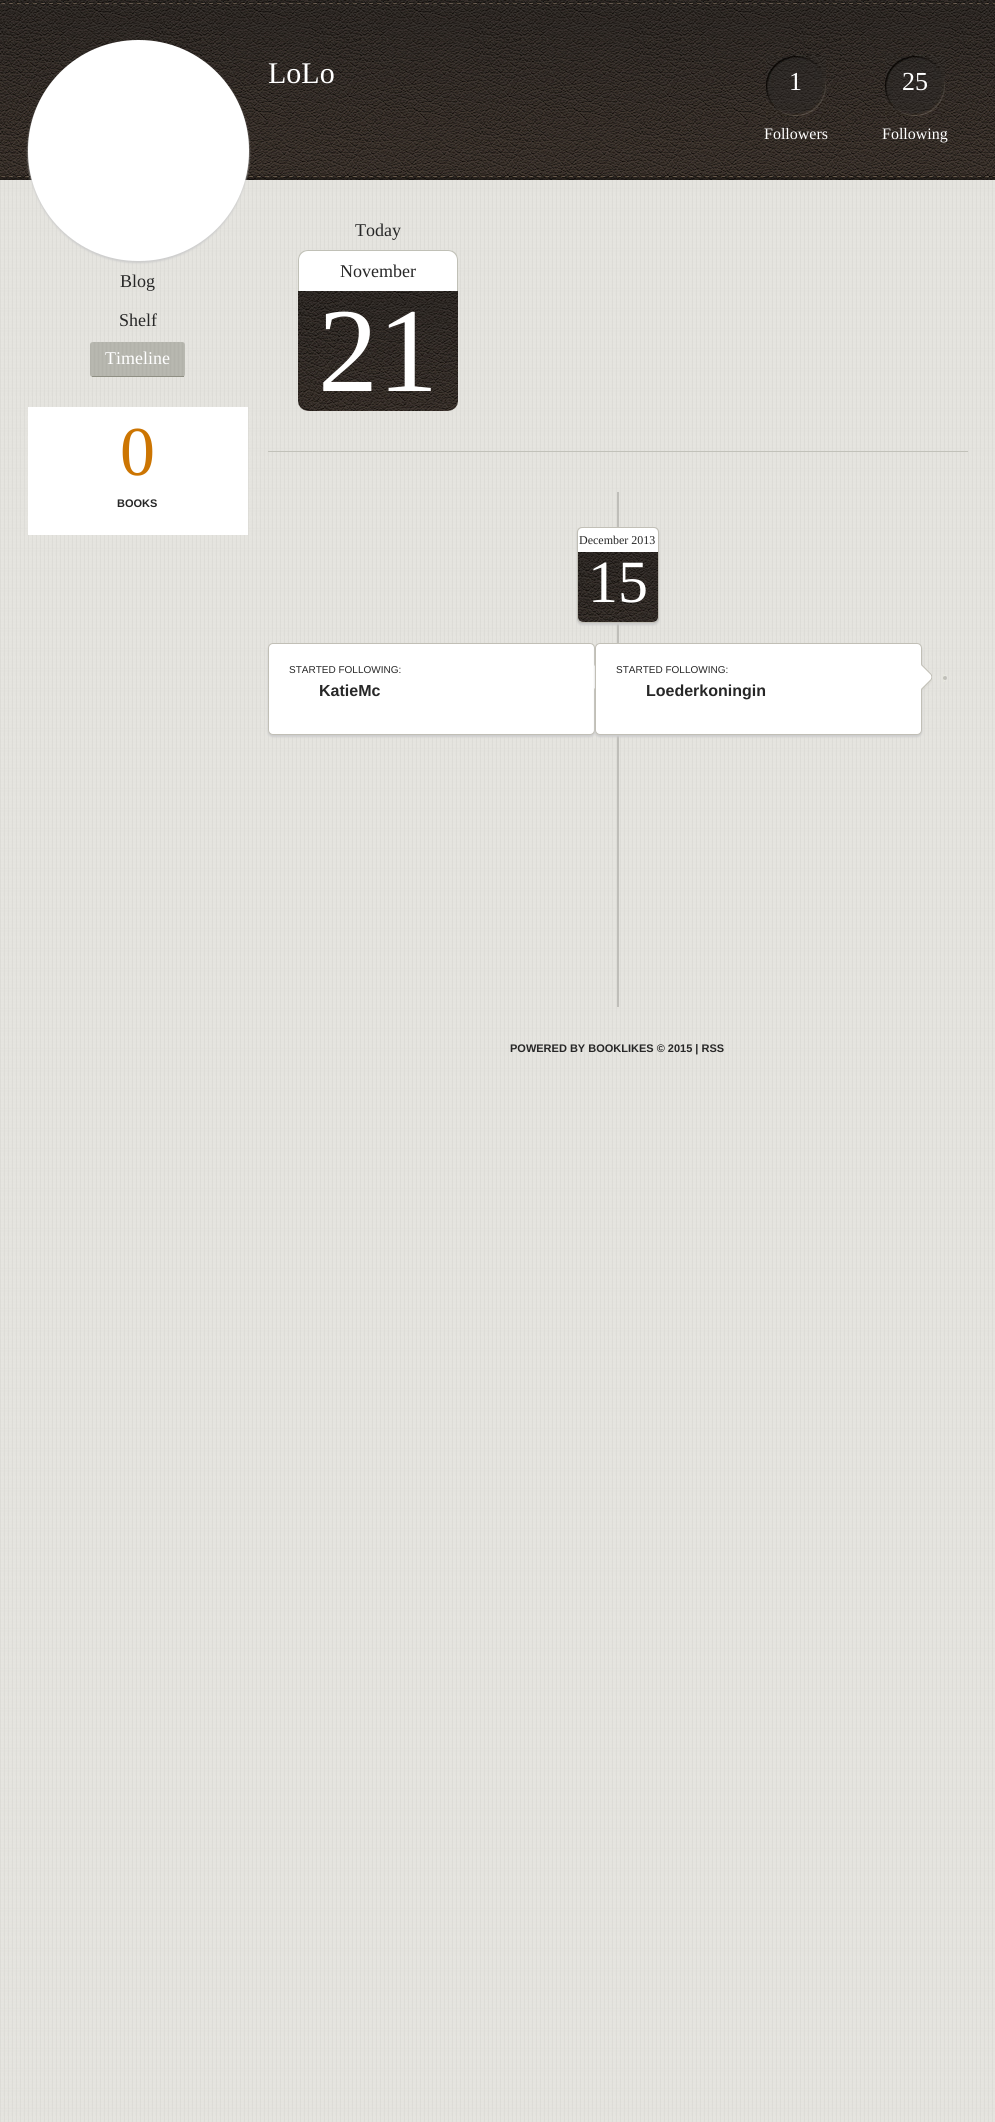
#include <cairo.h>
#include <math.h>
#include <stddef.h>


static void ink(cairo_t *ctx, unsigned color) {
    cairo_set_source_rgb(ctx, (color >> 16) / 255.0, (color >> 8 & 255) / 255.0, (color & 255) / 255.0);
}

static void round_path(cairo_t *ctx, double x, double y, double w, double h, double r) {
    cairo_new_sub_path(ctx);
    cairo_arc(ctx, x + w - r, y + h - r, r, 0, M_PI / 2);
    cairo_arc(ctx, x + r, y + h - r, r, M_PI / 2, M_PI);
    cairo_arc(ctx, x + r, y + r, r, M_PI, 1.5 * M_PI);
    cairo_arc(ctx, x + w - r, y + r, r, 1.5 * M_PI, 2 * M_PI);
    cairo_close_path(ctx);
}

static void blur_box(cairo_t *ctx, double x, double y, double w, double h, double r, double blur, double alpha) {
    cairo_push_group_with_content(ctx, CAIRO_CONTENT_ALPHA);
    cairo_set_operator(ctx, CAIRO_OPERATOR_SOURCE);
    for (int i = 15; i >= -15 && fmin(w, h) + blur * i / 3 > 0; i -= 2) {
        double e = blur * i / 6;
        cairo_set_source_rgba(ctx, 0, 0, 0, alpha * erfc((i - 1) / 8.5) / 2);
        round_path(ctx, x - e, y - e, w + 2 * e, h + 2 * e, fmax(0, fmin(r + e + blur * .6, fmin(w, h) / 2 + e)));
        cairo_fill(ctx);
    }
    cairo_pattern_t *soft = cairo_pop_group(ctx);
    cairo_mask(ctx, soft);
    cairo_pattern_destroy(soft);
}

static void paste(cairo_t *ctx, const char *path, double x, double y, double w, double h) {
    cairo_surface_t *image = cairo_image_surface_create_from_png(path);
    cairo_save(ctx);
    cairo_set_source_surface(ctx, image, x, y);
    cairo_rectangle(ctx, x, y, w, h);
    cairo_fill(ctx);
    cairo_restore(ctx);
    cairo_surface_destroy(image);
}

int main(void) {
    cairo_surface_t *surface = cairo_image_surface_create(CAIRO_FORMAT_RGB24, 995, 2122);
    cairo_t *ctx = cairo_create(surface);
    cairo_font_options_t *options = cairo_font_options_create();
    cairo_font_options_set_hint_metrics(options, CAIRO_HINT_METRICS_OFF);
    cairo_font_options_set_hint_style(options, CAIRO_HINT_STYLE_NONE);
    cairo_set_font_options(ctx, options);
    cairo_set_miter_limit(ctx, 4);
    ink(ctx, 0xFFFFFF);
    cairo_paint(ctx);
    paste(ctx, "media/1.png", 0, 180, 995, 1942);
    paste(ctx, "media/2.png", 0, 0, 995, 180);
    ink(ctx, 0xCCCCCC);
    blur_box(ctx, 28, 42, 221, 221, 110, 1, 1);
    ink(ctx, 0xFFFFFF);
    round_path(ctx, 28, 40, 221, 221, 110);
    cairo_fill(ctx);
    cairo_select_font_face(ctx, "Liberation Serif", CAIRO_FONT_SLANT_NORMAL, CAIRO_FONT_WEIGHT_NORMAL);
    cairo_set_font_size(ctx, 30);
    cairo_move_to(ctx, 268, 83);
    cairo_show_text(ctx, "LoLo");
    paste(ctx, "media/3.png", 766, 55, 60, 61);
    cairo_set_font_size(ctx, 26);
    cairo_move_to(ctx, 789, 90);
    cairo_show_text(ctx, "1");
    cairo_set_font_size(ctx, 16);
    cairo_move_to(ctx, 764, 139);
    cairo_show_text(ctx, "Followers");
    paste(ctx, "media/3.png", 885, 55, 60, 61);
    cairo_set_font_size(ctx, 26);
    cairo_move_to(ctx, 902, 90);
    cairo_show_text(ctx, "25");
    cairo_set_font_size(ctx, 16);
    cairo_move_to(ctx, 882, 139);
    cairo_show_text(ctx, "Following");
    cairo_set_font_size(ctx, 18);
    ink(ctx, 0x272727);
    cairo_move_to(ctx, 120, 287);
    cairo_show_text(ctx, "Blog");
    cairo_move_to(ctx, 119, 326);
    cairo_show_text(ctx, "Shelf");
    paste(ctx, "media/4.png", 90, 342, 95, 35);
    ink(ctx, 0x8F8F83);
    cairo_rectangle(ctx, 92, 376, 92, 1);
    cairo_fill(ctx);
    ink(ctx, 0xFFFFFF);
    cairo_move_to(ctx, 105, 364);
    cairo_show_text(ctx, "Timeline");
    cairo_rectangle(ctx, 28, 407, 220, 128);
    cairo_fill(ctx);
    cairo_set_font_size(ctx, 70);
    ink(ctx, 0xCC7502);
    cairo_move_to(ctx, 120, 475);
    cairo_show_text(ctx, "0");
    cairo_select_font_face(ctx, "Liberation Sans", CAIRO_FONT_SLANT_NORMAL, CAIRO_FONT_WEIGHT_BOLD);
    cairo_set_font_size(ctx, 11);
    ink(ctx, 0x272727);
    cairo_move_to(ctx, 117, 507);
    cairo_show_text(ctx, "BOOKS");
    cairo_select_font_face(ctx, "Liberation Serif", CAIRO_FONT_SLANT_NORMAL, CAIRO_FONT_WEIGHT_NORMAL);
    cairo_set_font_size(ctx, 18);
    cairo_move_to(ctx, 355, 236);
    cairo_show_text(ctx, "Today");
    ink(ctx, 0xFFFFFF);
    cairo_new_path(ctx);
    cairo_move_to(ctx, 308, 250);
    cairo_line_to(ctx, 448, 250);
    cairo_curve_to(ctx, 453.5, 250, 458, 254.5, 458, 260);
    cairo_line_to(ctx, 458, 291);
    cairo_line_to(ctx, 298, 291);
    cairo_line_to(ctx, 298, 260);
    cairo_curve_to(ctx, 298, 254.5, 302.5, 250, 308, 250);
    cairo_close_path(ctx);
    cairo_fill(ctx);
    ink(ctx, 0xC0C0B6);
    cairo_set_fill_rule(ctx, CAIRO_FILL_RULE_EVEN_ODD);
    cairo_new_path(ctx);
    cairo_move_to(ctx, 308, 250);
    cairo_line_to(ctx, 448, 250);
    cairo_curve_to(ctx, 454, 250, 458, 254, 458, 260);
    cairo_line_to(ctx, 458, 291);
    cairo_line_to(ctx, 298, 291);
    cairo_line_to(ctx, 298, 260);
    cairo_curve_to(ctx, 298, 254, 302, 250, 308, 250);
    cairo_close_path(ctx);
    cairo_move_to(ctx, 308, 251);
    cairo_line_to(ctx, 448, 251);
    cairo_curve_to(ctx, 453, 251, 457, 255, 457, 260);
    cairo_line_to(ctx, 457, 291);
    cairo_line_to(ctx, 299, 291);
    cairo_line_to(ctx, 299, 260);
    cairo_curve_to(ctx, 299, 255, 303, 251, 308, 251);
    cairo_close_path(ctx);
    cairo_fill(ctx);
    ink(ctx, 0x272727);
    cairo_move_to(ctx, 340, 277);
    cairo_show_text(ctx, "November");
    paste(ctx, "media/5.png", 298, 291, 160, 120);
    cairo_set_font_size(ctx, 120);
    ink(ctx, 0xFFFFFF);
    cairo_move_to(ctx, 318, 391);
    cairo_show_text(ctx, "21");
    ink(ctx, 0xC1C1B9);
    cairo_rectangle(ctx, 268, 451, 700, 1);
    cairo_fill(ctx);
    ink(ctx, 0xBFBEB9);
    cairo_rectangle(ctx, 617, 492, 2, 515);
    cairo_fill(ctx);
    ink(ctx, 0xCCCCCC);
    blur_box(ctx, 577, 529, 82, 96, 5, 1, 1);
    round_path(ctx, 577.5, 527.5, 81, 95, 4.5);
    ink(ctx, 0xC1BFB6);
    cairo_set_line_width(ctx, 1);
    cairo_stroke(ctx);
    ink(ctx, 0xFFFFFF);
    cairo_new_path(ctx);
    cairo_move_to(ctx, 583, 528);
    cairo_line_to(ctx, 653, 528);
    cairo_curve_to(ctx, 656, 528, 658, 530, 658, 533);
    cairo_line_to(ctx, 658, 552);
    cairo_line_to(ctx, 578, 552);
    cairo_line_to(ctx, 578, 533);
    cairo_curve_to(ctx, 578, 530, 580, 528, 583, 528);
    cairo_close_path(ctx);
    cairo_fill(ctx);
    cairo_set_font_size(ctx, 12);
    ink(ctx, 0x272727);
    cairo_move_to(ctx, 579, 544);
    cairo_show_text(ctx, "December 2013");
    paste(ctx, "media/6.png", 578, 552, 80, 70);
    cairo_set_font_size(ctx, 60);
    ink(ctx, 0xFFFFFF);
    cairo_move_to(ctx, 588, 602);
    cairo_show_text(ctx, "15");
    ink(ctx, 0xCCCCCC);
    blur_box(ctx, 268, 645, 327, 92, 5, 1, 1);
    ink(ctx, 0xFFFFFF);
    round_path(ctx, 268.5, 643.5, 326, 91, 4.5);
    cairo_fill_preserve(ctx);
    ink(ctx, 0xC1BFB6);
    cairo_stroke(ctx);
    cairo_select_font_face(ctx, "Liberation Sans", CAIRO_FONT_SLANT_NORMAL, CAIRO_FONT_WEIGHT_NORMAL);
    cairo_set_font_size(ctx, 10);
    ink(ctx, 0x272727);
    cairo_move_to(ctx, 289, 673);
    cairo_show_text(ctx, "STARTED FOLLOWING:");
    paste(ctx, "media/7.png", 594, 664, 1, 26);
    cairo_select_font_face(ctx, "Liberation Sans", CAIRO_FONT_SLANT_NORMAL, CAIRO_FONT_WEIGHT_BOLD);
    cairo_set_font_size(ctx, 16);
    cairo_move_to(ctx, 319, 696);
    cairo_show_text(ctx, "KatieMc");
    ink(ctx, 0xCCCCCC);
    blur_box(ctx, 595, 645, 327, 92, 5, 1, 1);
    ink(ctx, 0xFFFFFF);
    round_path(ctx, 595.5, 643.5, 326, 91, 4.5);
    cairo_fill_preserve(ctx);
    ink(ctx, 0xC1BFB6);
    cairo_stroke(ctx);
    cairo_select_font_face(ctx, "Liberation Sans", CAIRO_FONT_SLANT_NORMAL, CAIRO_FONT_WEIGHT_NORMAL);
    cairo_set_font_size(ctx, 10);
    ink(ctx, 0x272727);
    cairo_move_to(ctx, 616, 673);
    cairo_show_text(ctx, "STARTED FOLLOWING:");
    paste(ctx, "media/8.png", 921, 664, 11, 26);
    paste(ctx, "media/9.png", 943, 674, 4, 8);
    cairo_select_font_face(ctx, "Liberation Sans", CAIRO_FONT_SLANT_NORMAL, CAIRO_FONT_WEIGHT_BOLD);
    cairo_set_font_size(ctx, 16);
    cairo_move_to(ctx, 646, 696);
    cairo_show_text(ctx, "Loederkoningin");
    cairo_set_font_size(ctx, 11);
    cairo_move_to(ctx, 510, 1052);
    cairo_show_text(ctx, "POWERED BY BOOKLIKES © 2015 | RSS");
    cairo_surface_write_to_png(surface, "image.png");
    cairo_font_options_destroy(options);
    cairo_destroy(ctx);
    cairo_surface_destroy(surface);
    return 0;
}
